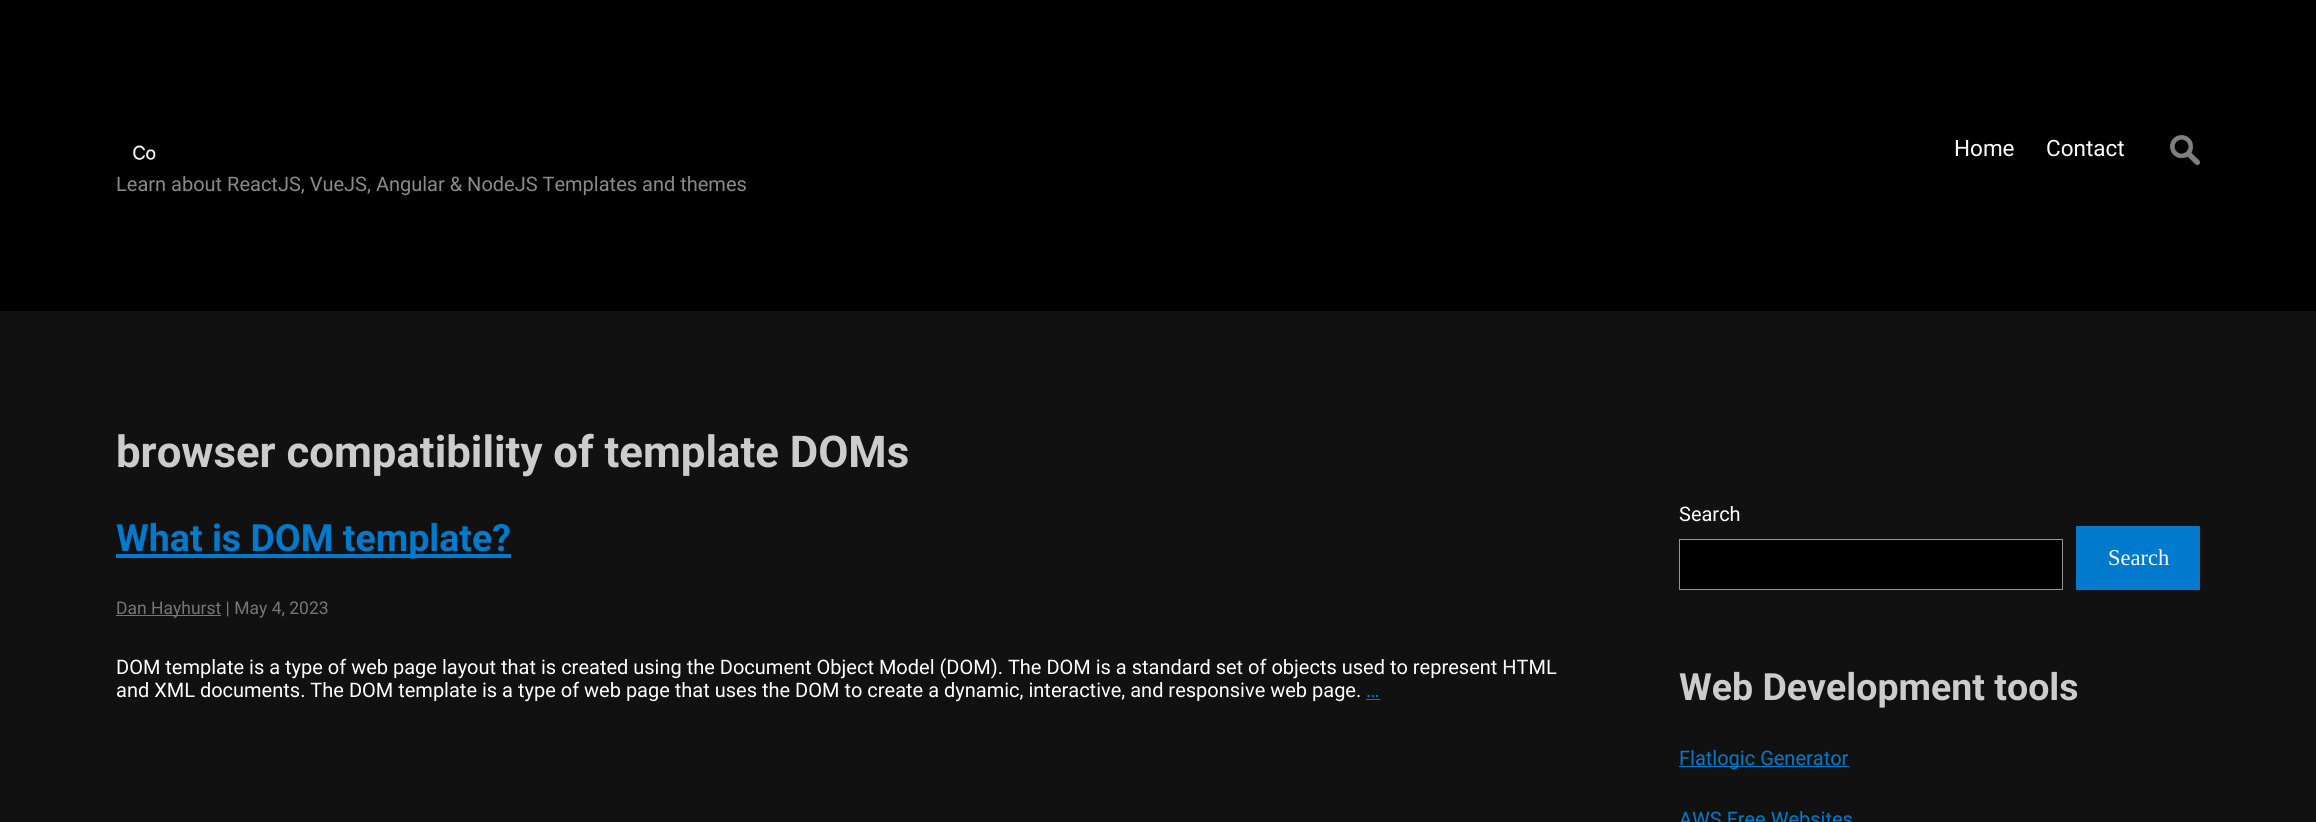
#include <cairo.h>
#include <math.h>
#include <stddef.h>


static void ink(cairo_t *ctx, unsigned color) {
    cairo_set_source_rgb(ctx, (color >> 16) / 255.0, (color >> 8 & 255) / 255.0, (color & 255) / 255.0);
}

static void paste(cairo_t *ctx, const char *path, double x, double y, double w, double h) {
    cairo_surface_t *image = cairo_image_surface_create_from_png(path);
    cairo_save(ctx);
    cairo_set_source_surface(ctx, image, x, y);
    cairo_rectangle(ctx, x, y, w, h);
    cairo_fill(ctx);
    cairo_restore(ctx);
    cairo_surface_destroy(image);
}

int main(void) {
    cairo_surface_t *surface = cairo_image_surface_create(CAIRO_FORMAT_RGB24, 2316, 822);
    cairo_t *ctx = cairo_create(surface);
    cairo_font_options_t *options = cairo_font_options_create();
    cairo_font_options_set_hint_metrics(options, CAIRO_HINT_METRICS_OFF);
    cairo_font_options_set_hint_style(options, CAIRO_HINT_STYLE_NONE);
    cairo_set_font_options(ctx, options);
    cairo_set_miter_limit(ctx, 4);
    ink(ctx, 0x000000);
    cairo_paint(ctx);
    cairo_select_font_face(ctx, "Roboto", CAIRO_FONT_SLANT_NORMAL, CAIRO_FONT_WEIGHT_NORMAL);
    cairo_set_font_size(ctx, 22.5);
    ink(ctx, 0xFFFFFF);
    cairo_move_to(ctx, 1954, 156);
    cairo_show_text(ctx, "Home");
    cairo_move_to(ctx, 2046, 156);
    cairo_show_text(ctx, "Contact");
    paste(ctx, "media/1.png", 2170, 135, 30, 30);
    paste(ctx, "media/2.png", 132, 145, 24, 15);
    cairo_set_font_size(ctx, 20);
    ink(ctx, 0x8A8A8A);
    cairo_move_to(ctx, 116, 191);
    cairo_show_text(ctx, "Learn about ReactJS, VueJS, Angular & NodeJS Templates and themes");
    ink(ctx, 0x111111);
    cairo_rectangle(ctx, 0, 311, 2316, 511);
    cairo_fill(ctx);
    cairo_select_font_face(ctx, "Roboto", CAIRO_FONT_SLANT_NORMAL, CAIRO_FONT_WEIGHT_BOLD);
    cairo_set_font_size(ctx, 43.75);
    ink(ctx, 0xCCCCCC);
    cairo_move_to(ctx, 116, 467);
    cairo_show_text(ctx, "browser compatibility of template DOMs");
    ink(ctx, 0x007ACC);
    cairo_rectangle(ctx, 116, 554, 395, 4);
    cairo_fill(ctx);
    cairo_set_font_size(ctx, 37.5);
    cairo_move_to(ctx, 116, 551);
    cairo_show_text(ctx, "What is DOM template?");
    ink(ctx, 0x767676);
    cairo_rectangle(ctx, 116, 615, 105, 1);
    cairo_fill(ctx);
    cairo_select_font_face(ctx, "Roboto", CAIRO_FONT_SLANT_NORMAL, CAIRO_FONT_WEIGHT_NORMAL);
    cairo_set_font_size(ctx, 17.5);
    cairo_move_to(ctx, 116, 614);
    cairo_show_text(ctx, "Dan Hayhurst | May 4, 2023");
    cairo_set_font_size(ctx, 20);
    ink(ctx, 0xFFFFFF);
    cairo_move_to(ctx, 116, 674);
    cairo_show_text(ctx, "DOM template is a type of web page layout that is created using the Document Object Model (DOM). The DOM is a standard set of objects used to represent HTML");
    cairo_move_to(ctx, 116, 697);
    cairo_show_text(ctx, "and XML documents. The DOM template is a type of web page that uses the DOM to create a dynamic, interactive, and responsive web page.");
    ink(ctx, 0x007ACC);
    cairo_move_to(ctx, 1366, 697);
    cairo_show_text(ctx, "…");
    cairo_rectangle(ctx, 1366, 699, 14, 1);
    cairo_fill(ctx);
    ink(ctx, 0xFFFFFF);
    cairo_move_to(ctx, 1679, 521);
    cairo_show_text(ctx, "Search");
    ink(ctx, 0x000000);
    cairo_rectangle(ctx, 1679.5, 539.5, 383, 50);
    cairo_fill_preserve(ctx);
    ink(ctx, 0x949494);
    cairo_set_line_width(ctx, 1);
    cairo_stroke(ctx);
    ink(ctx, 0x007ACC);
    cairo_rectangle(ctx, 2076, 526, 124, 64);
    cairo_fill(ctx);
    cairo_select_font_face(ctx, "Liberation Serif", CAIRO_FONT_SLANT_NORMAL, CAIRO_FONT_WEIGHT_NORMAL);
    cairo_set_font_size(ctx, 22.5);
    ink(ctx, 0xFFFFFF);
    cairo_move_to(ctx, 2108, 565);
    cairo_show_text(ctx, "Search");
    cairo_select_font_face(ctx, "Roboto", CAIRO_FONT_SLANT_NORMAL, CAIRO_FONT_WEIGHT_BOLD);
    cairo_set_font_size(ctx, 37.5);
    ink(ctx, 0xCCCCCC);
    cairo_move_to(ctx, 1679, 700);
    cairo_show_text(ctx, "Web Development tools");
    ink(ctx, 0x007ACC);
    cairo_rectangle(ctx, 1679, 766, 170, 1);
    cairo_fill(ctx);
    cairo_select_font_face(ctx, "Roboto", CAIRO_FONT_SLANT_NORMAL, CAIRO_FONT_WEIGHT_NORMAL);
    cairo_set_font_size(ctx, 20);
    cairo_move_to(ctx, 1679, 765);
    cairo_show_text(ctx, "Flatlogic Generator");
    cairo_move_to(ctx, 1679, 826);
    cairo_show_text(ctx, "AWS Free Websites");
    cairo_surface_write_to_png(surface, "image.png");
    cairo_font_options_destroy(options);
    cairo_destroy(ctx);
    cairo_surface_destroy(surface);
    return 0;
}
